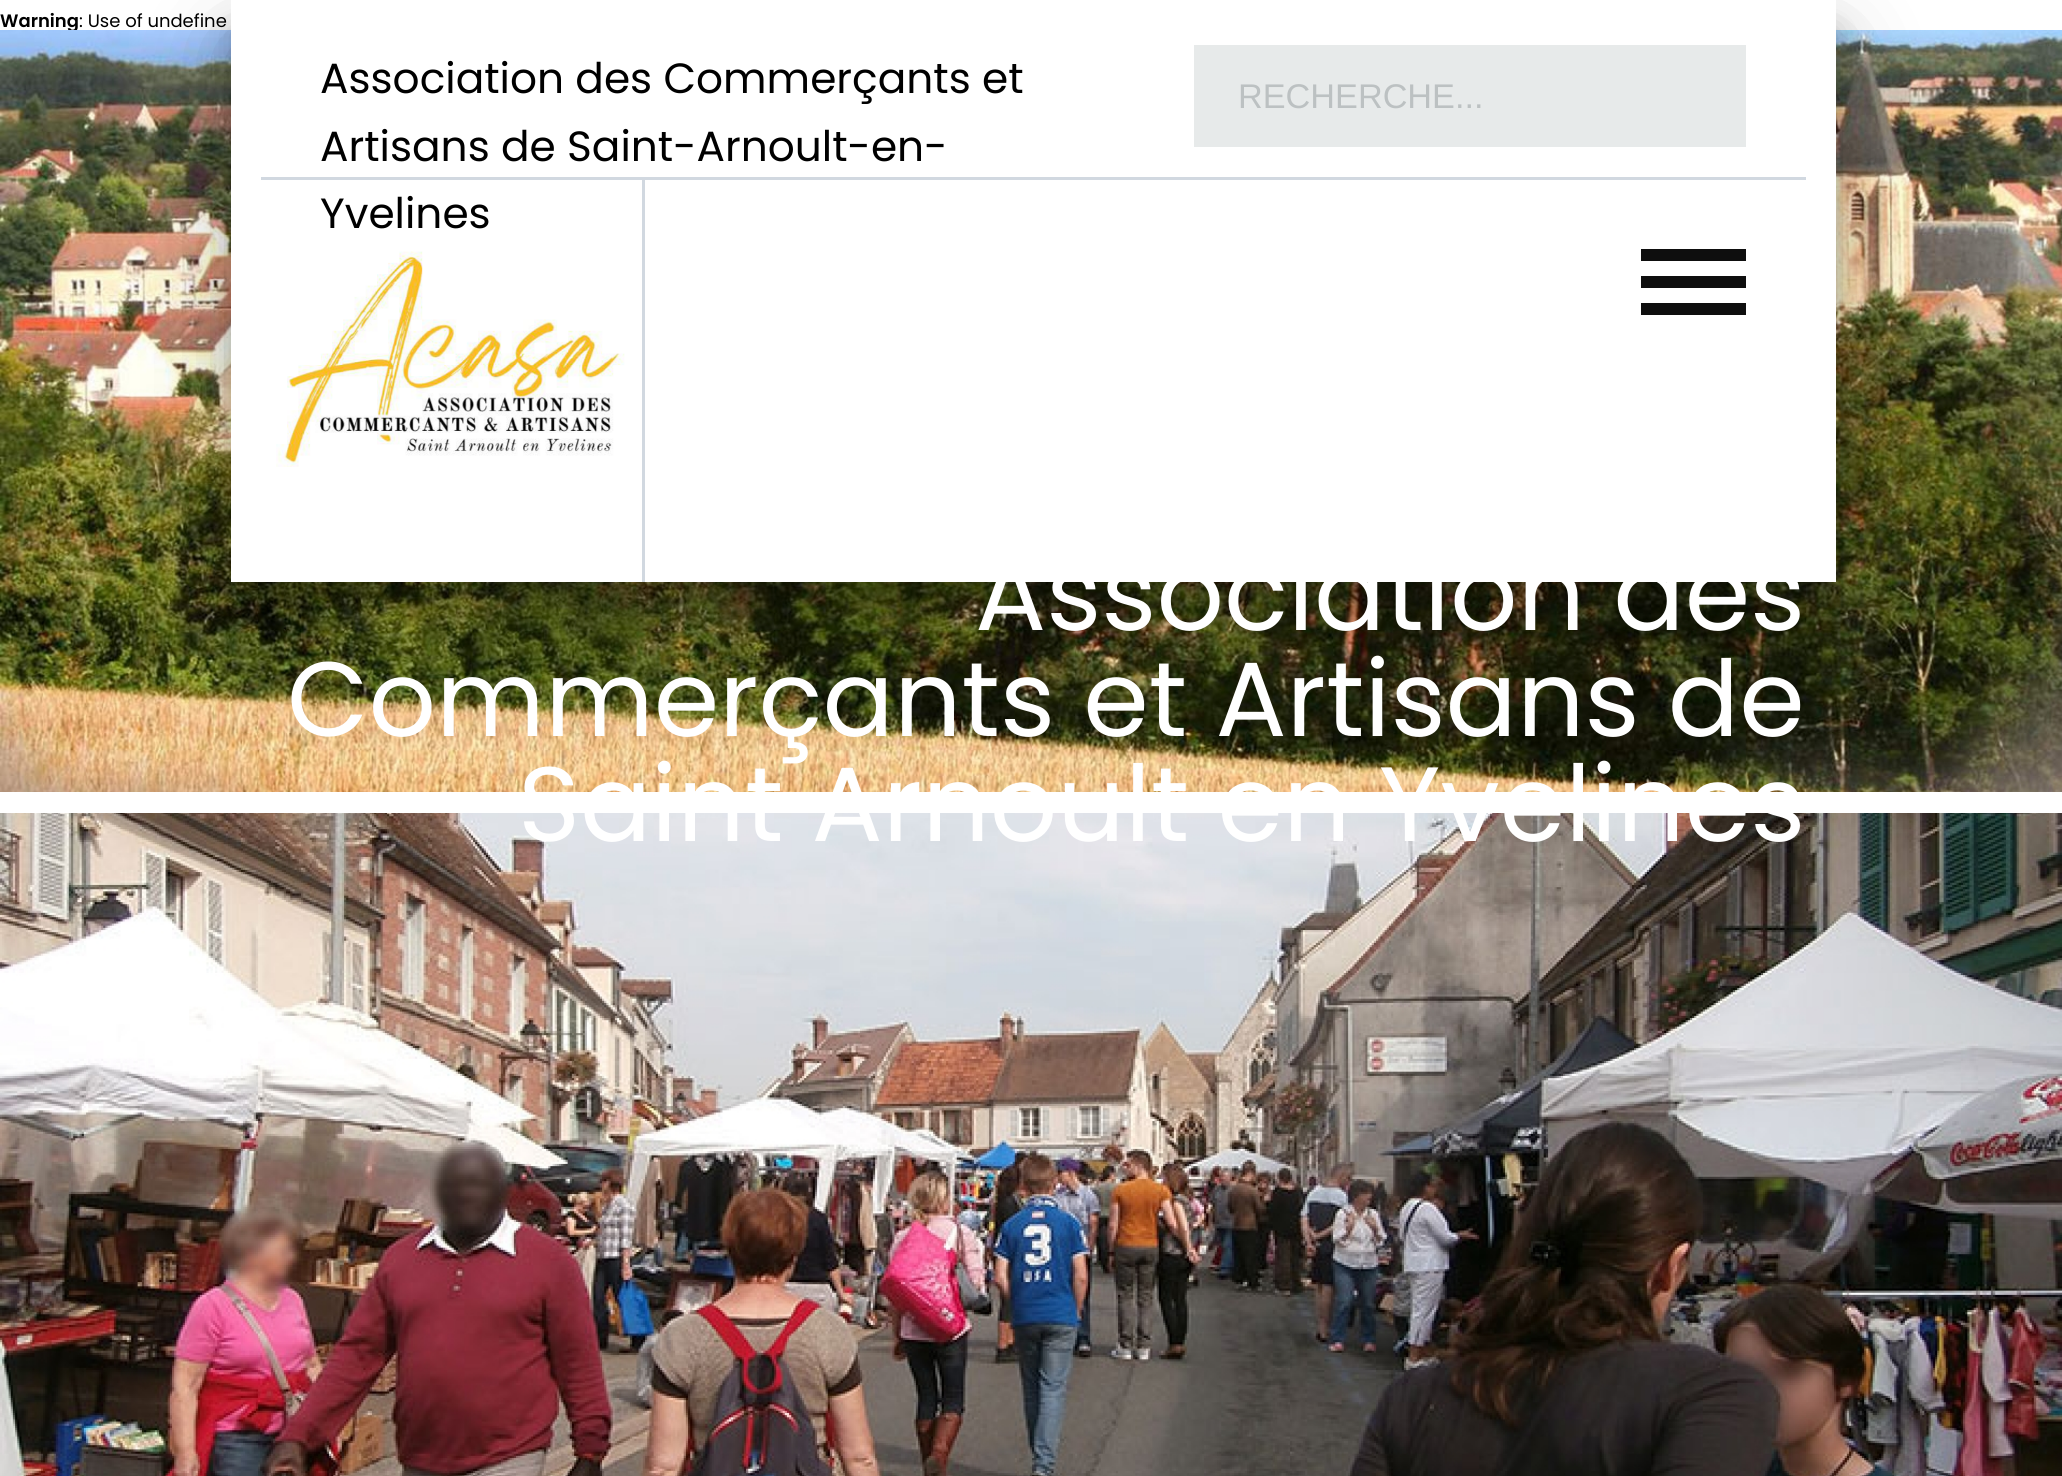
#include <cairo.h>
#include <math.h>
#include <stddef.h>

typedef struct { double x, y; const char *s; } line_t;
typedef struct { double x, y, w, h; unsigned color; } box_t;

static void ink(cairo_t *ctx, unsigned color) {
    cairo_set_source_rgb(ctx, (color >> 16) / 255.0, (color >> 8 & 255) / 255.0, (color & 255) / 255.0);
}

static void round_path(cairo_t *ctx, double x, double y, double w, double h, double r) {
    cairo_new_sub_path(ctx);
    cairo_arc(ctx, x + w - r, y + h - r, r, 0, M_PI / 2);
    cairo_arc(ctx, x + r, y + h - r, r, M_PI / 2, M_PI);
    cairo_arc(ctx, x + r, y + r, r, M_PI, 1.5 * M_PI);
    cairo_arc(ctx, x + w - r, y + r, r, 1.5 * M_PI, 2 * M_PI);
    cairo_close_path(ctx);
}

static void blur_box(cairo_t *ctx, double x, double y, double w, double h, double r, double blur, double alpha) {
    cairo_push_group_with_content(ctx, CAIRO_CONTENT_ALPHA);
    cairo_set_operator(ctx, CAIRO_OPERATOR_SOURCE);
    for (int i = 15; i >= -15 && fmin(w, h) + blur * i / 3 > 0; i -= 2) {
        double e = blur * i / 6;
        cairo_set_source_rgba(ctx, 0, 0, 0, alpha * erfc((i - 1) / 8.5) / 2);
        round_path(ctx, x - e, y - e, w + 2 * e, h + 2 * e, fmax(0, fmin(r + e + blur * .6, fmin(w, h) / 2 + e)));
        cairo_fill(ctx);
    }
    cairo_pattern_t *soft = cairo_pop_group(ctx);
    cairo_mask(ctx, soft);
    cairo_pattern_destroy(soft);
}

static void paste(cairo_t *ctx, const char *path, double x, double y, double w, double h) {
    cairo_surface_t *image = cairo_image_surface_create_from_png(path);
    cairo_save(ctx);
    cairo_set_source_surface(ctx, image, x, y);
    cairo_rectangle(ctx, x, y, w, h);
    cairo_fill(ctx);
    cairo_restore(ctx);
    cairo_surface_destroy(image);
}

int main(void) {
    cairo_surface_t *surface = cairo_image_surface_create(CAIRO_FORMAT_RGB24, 2062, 1476);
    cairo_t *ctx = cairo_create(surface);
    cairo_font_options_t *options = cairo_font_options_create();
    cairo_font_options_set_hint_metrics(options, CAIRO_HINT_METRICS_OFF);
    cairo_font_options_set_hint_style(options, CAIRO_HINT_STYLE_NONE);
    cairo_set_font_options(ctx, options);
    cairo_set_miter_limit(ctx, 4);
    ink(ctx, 0xFFFFFF);
    cairo_paint(ctx);
    cairo_select_font_face(ctx, "Poppins SemiBold", CAIRO_FONT_SLANT_NORMAL, CAIRO_FONT_WEIGHT_NORMAL);
    cairo_set_font_size(ctx, 18);
    ink(ctx, 0x000000);
    cairo_move_to(ctx, 0, 27);
    cairo_show_text(ctx, "Warning");
    cairo_select_font_face(ctx, "Poppins", CAIRO_FONT_SLANT_NORMAL, CAIRO_FONT_WEIGHT_NORMAL);
    cairo_move_to(ctx, 79, 27);
    cairo_show_text(ctx, ": Use of undefine");
    paste(ctx, "media/2.png", 0, 30, 2062, 762);
    ink(ctx, 0x000000);
    blur_box(ctx, 231, 30, 1605, 582, 0, 15, 0.22);
    blur_box(ctx, 231, 42, 1605, 582, 0, 42, 0.25);
    ink(ctx, 0xFFFFFF);
    cairo_rectangle(ctx, 231, 0, 1605, 582);
    cairo_fill(ctx);
    ink(ctx, 0xD1D8E0);
    cairo_rectangle(ctx, 261, 177, 1545, 3);
    cairo_fill(ctx);
    cairo_set_font_size(ctx, 42.25);
    ink(ctx, 0x000000);
    {
        static const line_t items[] = {
            {320, 93, "Association des Commerçants et"},
            {320, 161, "Artisans de Saint-Arnoult-en-"},
            {320, 228, "Yvelines"},
        };
        for (size_t i = 0; i < sizeof items / sizeof *items; i++) {
            cairo_move_to(ctx, items[i].x, items[i].y);
            cairo_show_text(ctx, items[i].s);
        }
    }
    ink(ctx, 0xE7EAEA);
    cairo_rectangle(ctx, 1194, 45, 552, 102);
    cairo_fill(ctx);
    cairo_select_font_face(ctx, "Liberation Sans", CAIRO_FONT_SLANT_NORMAL, CAIRO_FONT_WEIGHT_NORMAL);
    cairo_set_font_size(ctx, 34.25);
    ink(ctx, 0xBCC1C2);
    cairo_move_to(ctx, 1238, 108);
    cairo_show_text(ctx, "RECHERCHE...");
    ink(ctx, 0xD1D8E0);
    cairo_rectangle(ctx, 642, 180, 3, 402);
    cairo_fill(ctx);
    paste(ctx, "media/1.png", 276, 251, 349, 216);
    {
        static const box_t items[] = {
            {1641, 249, 105, 12, 0x0E0E0E},
            {1641, 276, 105, 12, 0x0E0E0E},
            {1641, 303, 105, 12, 0x0E0E0E},
        };
        for (size_t i = 0; i < sizeof items / sizeof *items; i++) {
            ink(ctx, items[i].color);
            cairo_rectangle(ctx, items[i].x, items[i].y, items[i].w, items[i].h);
            cairo_fill(ctx);
        }
    }
    cairo_select_font_face(ctx, "Poppins", CAIRO_FONT_SLANT_NORMAL, CAIRO_FONT_WEIGHT_NORMAL);
    cairo_set_font_size(ctx, 105.6);
    ink(ctx, 0xFFFFFF);
    cairo_move_to(ctx, 975, 630);
    cairo_show_text(ctx, "Association des");
    cairo_move_to(ctx, 287, 736);
    cairo_show_text(ctx, "Commerçants et Artisans de");
    paste(ctx, "media/3.png", 0, 813, 2062, 663);
    cairo_move_to(ctx, 518, 841);
    cairo_show_text(ctx, "Saint Arnoult en Yvelines");
    cairo_surface_write_to_png(surface, "image.png");
    cairo_font_options_destroy(options);
    cairo_destroy(ctx);
    cairo_surface_destroy(surface);
    return 0;
}
